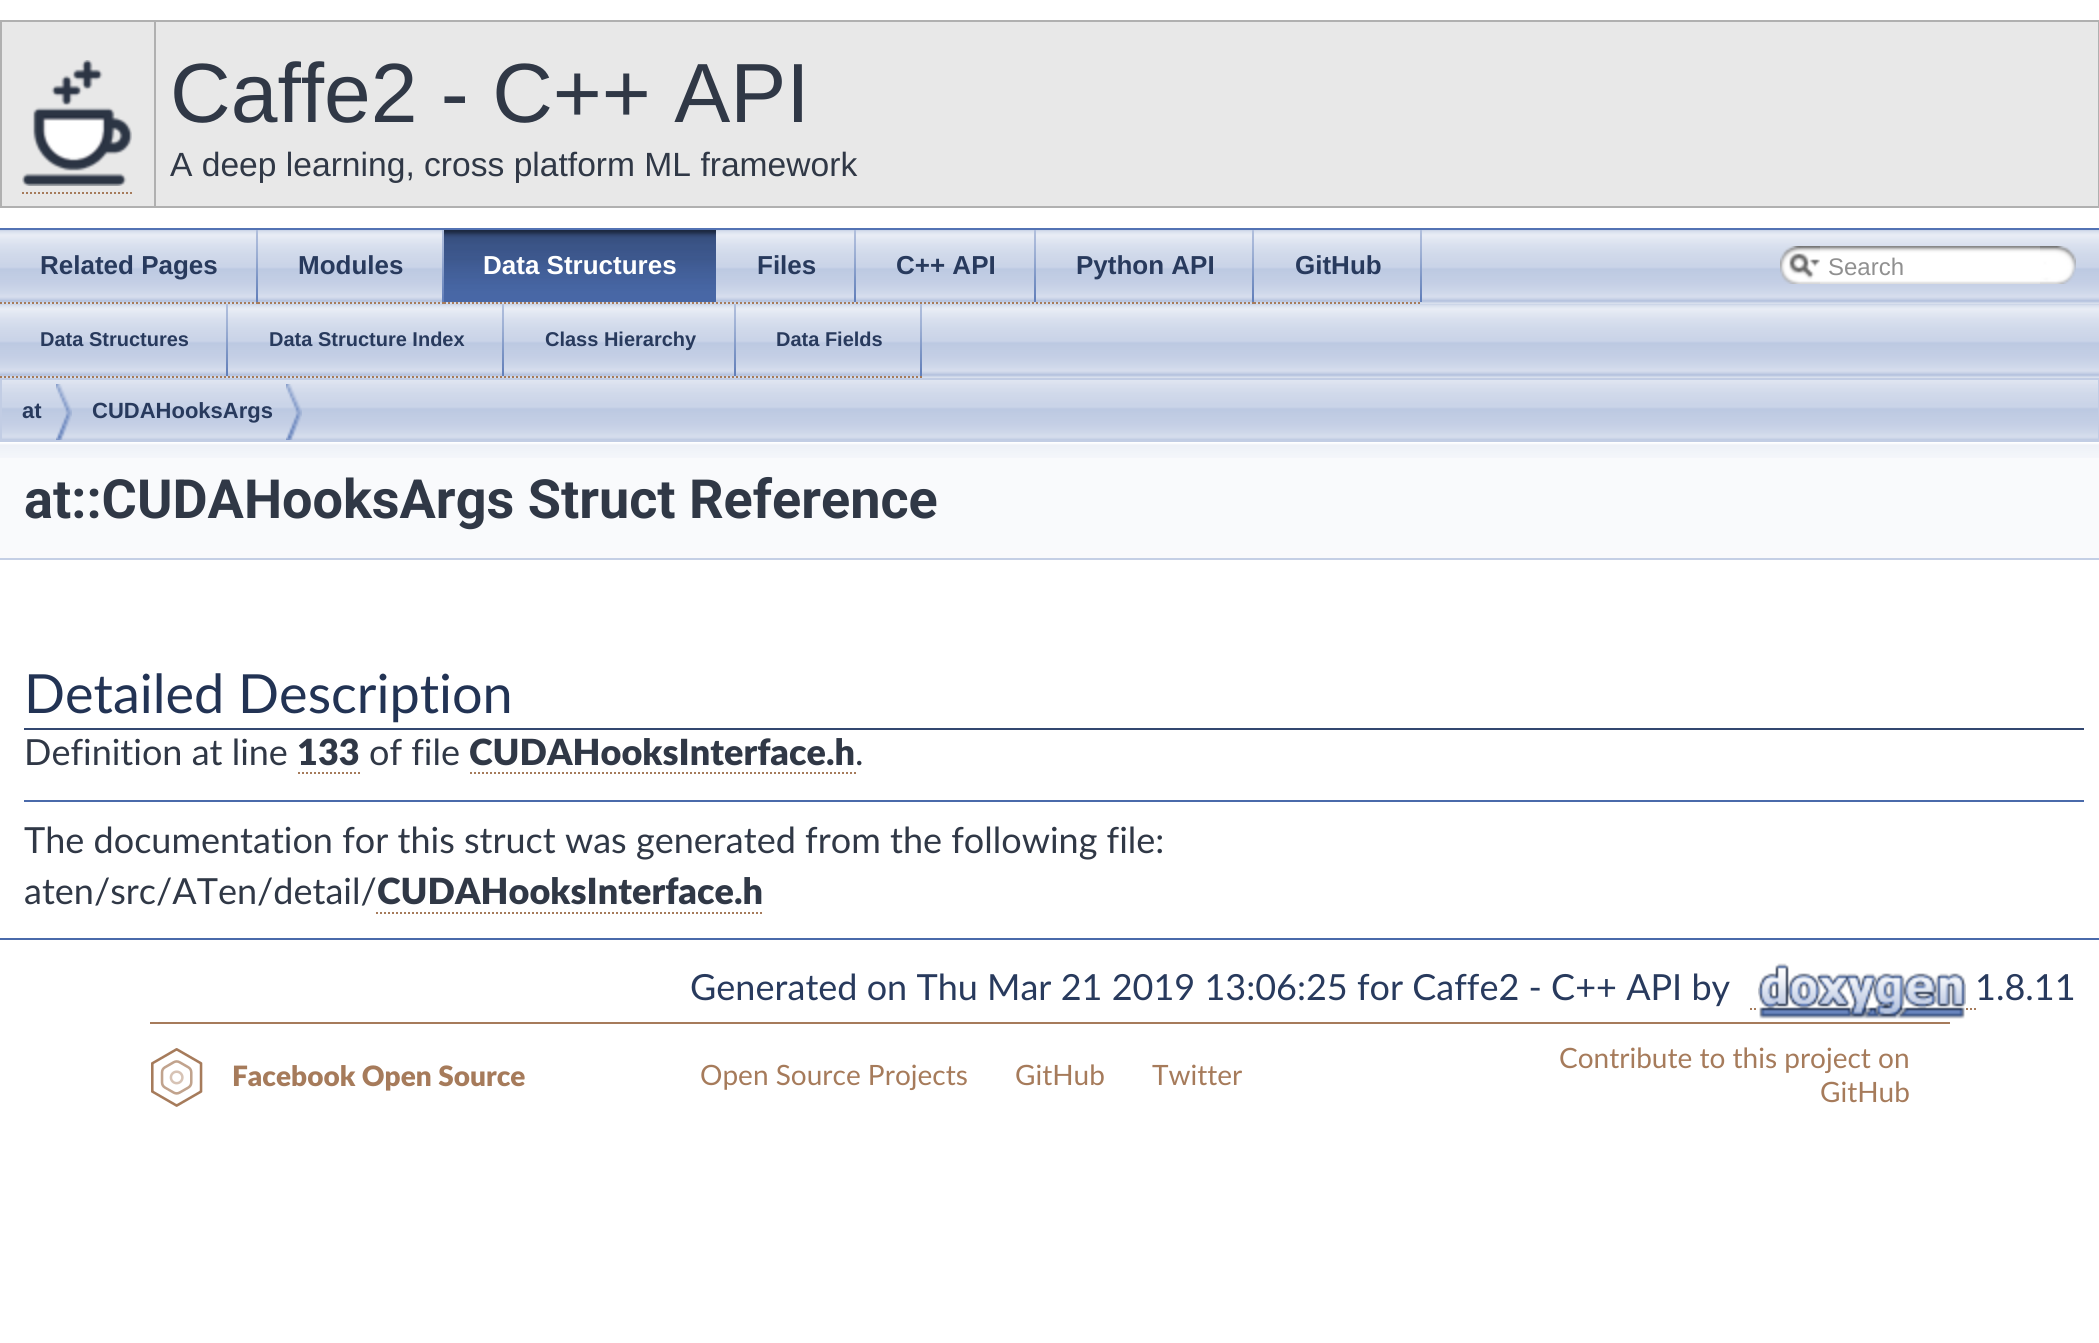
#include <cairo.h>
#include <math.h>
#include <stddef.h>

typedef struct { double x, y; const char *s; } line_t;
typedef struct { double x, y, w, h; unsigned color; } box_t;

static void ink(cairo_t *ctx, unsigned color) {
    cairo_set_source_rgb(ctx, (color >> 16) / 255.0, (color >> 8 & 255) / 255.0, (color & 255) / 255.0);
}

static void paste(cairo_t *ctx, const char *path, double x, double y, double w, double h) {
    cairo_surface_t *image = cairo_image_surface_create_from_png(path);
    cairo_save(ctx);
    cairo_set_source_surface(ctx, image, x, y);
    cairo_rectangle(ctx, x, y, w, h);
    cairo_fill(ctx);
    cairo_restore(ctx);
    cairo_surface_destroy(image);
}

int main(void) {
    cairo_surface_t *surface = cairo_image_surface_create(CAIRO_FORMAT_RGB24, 2099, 1343);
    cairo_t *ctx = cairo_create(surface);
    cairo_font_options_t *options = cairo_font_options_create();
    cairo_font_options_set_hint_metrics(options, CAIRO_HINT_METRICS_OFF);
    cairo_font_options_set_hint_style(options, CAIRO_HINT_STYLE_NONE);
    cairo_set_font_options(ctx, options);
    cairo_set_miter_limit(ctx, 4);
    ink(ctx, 0xFFFFFF);
    cairo_paint(ctx);
    {
        static const box_t items[] = {
            {0, 228, 2099, 2, 0x5373B4},
            {0, 20, 2099, 2, 0xB0B0B0},
            {2098, 20, 1, 188, 0xB0B0B0},
            {0, 206, 2099, 2, 0xB0B0B0},
            {0, 20, 2, 188, 0xB0B0B0},
            {2, 22, 2096, 184, 0xE8E8E8},
            {154, 20, 2, 188, 0xB0B0B0},
        };
        for (size_t i = 0; i < sizeof items / sizeof *items; i++) {
            ink(ctx, items[i].color);
            cairo_rectangle(ctx, items[i].x, items[i].y, items[i].w, items[i].h);
            cairo_fill(ctx);
        }
    }
    paste(ctx, "media/1.png", 22, 60, 110, 126);
    cairo_new_path(ctx);
    cairo_move_to(ctx, 22, 193);
    cairo_line_to(ctx, 132, 193);
    ink(ctx, 0xA67B5B);
    cairo_set_dash(ctx, (double[]){2, 2}, 2, 0);
    cairo_stroke(ctx);
    cairo_select_font_face(ctx, "Liberation Sans", CAIRO_FONT_SLANT_NORMAL, CAIRO_FONT_WEIGHT_NORMAL);
    cairo_set_font_size(ctx, 84);
    ink(ctx, 0x303846);
    cairo_move_to(ctx, 170, 122);
    cairo_show_text(ctx, "Caffe2 - C++ API");
    cairo_set_font_size(ctx, 33.6);
    cairo_move_to(ctx, 170, 176);
    cairo_show_text(ctx, "A deep learning, cross platform ML framework");
    paste(ctx, "media/2.png", 0, 230, 2099, 74);
    paste(ctx, "media/3.png", 256, 230, 2, 72);
    cairo_new_path(ctx);
    cairo_move_to(ctx, 0, 303);
    cairo_line_to(ctx, 258, 303);
    ink(ctx, 0xA67B5B);
    cairo_stroke(ctx);
    cairo_select_font_face(ctx, "Liberation Sans", CAIRO_FONT_SLANT_NORMAL, CAIRO_FONT_WEIGHT_BOLD);
    cairo_set_font_size(ctx, 26);
    ink(ctx, 0x283A5D);
    cairo_move_to(ctx, 40, 274);
    cairo_show_text(ctx, "Related Pages");
    paste(ctx, "media/3.png", 442, 230, 2, 72);
    cairo_new_path(ctx);
    cairo_move_to(ctx, 258, 303);
    cairo_line_to(ctx, 444, 303);
    ink(ctx, 0xA67B5B);
    cairo_stroke(ctx);
    ink(ctx, 0x283A5D);
    cairo_move_to(ctx, 298, 274);
    cairo_show_text(ctx, "Modules");
    paste(ctx, "media/4.png", 444, 230, 272, 72);
    cairo_new_path(ctx);
    cairo_move_to(ctx, 444, 303);
    cairo_line_to(ctx, 716, 303);
    ink(ctx, 0xA67B5B);
    cairo_stroke(ctx);
    ink(ctx, 0xFFFFFF);
    cairo_move_to(ctx, 483, 274);
    cairo_show_text(ctx, "Data Structures");
    paste(ctx, "media/3.png", 854, 230, 2, 72);
    cairo_new_path(ctx);
    cairo_move_to(ctx, 716, 303);
    cairo_line_to(ctx, 856, 303);
    ink(ctx, 0xA67B5B);
    cairo_stroke(ctx);
    ink(ctx, 0x283A5D);
    cairo_move_to(ctx, 757, 274);
    cairo_show_text(ctx, "Files");
    paste(ctx, "media/3.png", 1034, 230, 2, 72);
    cairo_new_path(ctx);
    cairo_move_to(ctx, 856, 303);
    cairo_line_to(ctx, 1036, 303);
    ink(ctx, 0xA67B5B);
    cairo_stroke(ctx);
    ink(ctx, 0x283A5D);
    cairo_move_to(ctx, 896, 274);
    cairo_show_text(ctx, "C++ API");
    paste(ctx, "media/3.png", 1252, 230, 2, 72);
    cairo_new_path(ctx);
    cairo_move_to(ctx, 1036, 303);
    cairo_line_to(ctx, 1254, 303);
    ink(ctx, 0xA67B5B);
    cairo_stroke(ctx);
    ink(ctx, 0x283A5D);
    cairo_move_to(ctx, 1076, 274);
    cairo_show_text(ctx, "Python API");
    paste(ctx, "media/3.png", 1420, 230, 2, 72);
    cairo_new_path(ctx);
    cairo_move_to(ctx, 1254, 303);
    cairo_line_to(ctx, 1422, 303);
    ink(ctx, 0xA67B5B);
    cairo_stroke(ctx);
    ink(ctx, 0x283A5D);
    cairo_move_to(ctx, 1295, 274);
    cairo_show_text(ctx, "GitHub");
    paste(ctx, "media/5.png", 1780, 246, 40, 38);
    paste(ctx, "media/6.png", 1789, 253, 31, 26);
    paste(ctx, "media/7.png", 1820, 246, 220, 38);
    cairo_select_font_face(ctx, "Liberation Sans", CAIRO_FONT_SLANT_NORMAL, CAIRO_FONT_WEIGHT_NORMAL);
    cairo_set_font_size(ctx, 24);
    ink(ctx, 0x909090);
    cairo_move_to(ctx, 1828, 275);
    cairo_show_text(ctx, "Search");
    paste(ctx, "media/8.png", 2040, 246, 36, 38);
    paste(ctx, "media/2.png", 0, 304, 2099, 74);
    paste(ctx, "media/3.png", 226, 304, 2, 72);
    cairo_new_path(ctx);
    cairo_move_to(ctx, 0, 377);
    cairo_line_to(ctx, 228, 377);
    ink(ctx, 0xA67B5B);
    cairo_stroke(ctx);
    cairo_select_font_face(ctx, "Liberation Sans", CAIRO_FONT_SLANT_NORMAL, CAIRO_FONT_WEIGHT_BOLD);
    cairo_set_font_size(ctx, 20);
    ink(ctx, 0x283A5D);
    cairo_move_to(ctx, 40, 346);
    cairo_show_text(ctx, "Data Structures");
    paste(ctx, "media/3.png", 502, 304, 2, 72);
    cairo_new_path(ctx);
    cairo_move_to(ctx, 228, 377);
    cairo_line_to(ctx, 504, 377);
    ink(ctx, 0xA67B5B);
    cairo_stroke(ctx);
    ink(ctx, 0x283A5D);
    cairo_move_to(ctx, 269, 346);
    cairo_show_text(ctx, "Data Structure Index");
    paste(ctx, "media/3.png", 734, 304, 2, 72);
    cairo_new_path(ctx);
    cairo_move_to(ctx, 504, 377);
    cairo_line_to(ctx, 736, 377);
    ink(ctx, 0xA67B5B);
    cairo_stroke(ctx);
    ink(ctx, 0x283A5D);
    cairo_move_to(ctx, 545, 346);
    cairo_show_text(ctx, "Class Hierarchy");
    paste(ctx, "media/3.png", 920, 304, 2, 72);
    cairo_new_path(ctx);
    cairo_move_to(ctx, 736, 377);
    cairo_line_to(ctx, 922, 377);
    ink(ctx, 0xA67B5B);
    cairo_stroke(ctx);
    ink(ctx, 0x283A5D);
    cairo_move_to(ctx, 776, 346);
    cairo_show_text(ctx, "Data Fields");
    paste(ctx, "media/9.png", 2, 380, 2096, 60);
    cairo_rectangle(ctx, 1, 379, 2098, 62);
    ink(ctx, 0xC2CDE4);
    cairo_set_dash(ctx, NULL, 0, 0);
    cairo_stroke(ctx);
    paste(ctx, "media/10.png", 56, 384, 16, 56);
    cairo_set_font_size(ctx, 22);
    ink(ctx, 0x283A5D);
    cairo_move_to(ctx, 22, 418);
    cairo_show_text(ctx, "at");
    paste(ctx, "media/10.png", 286, 384, 16, 56);
    cairo_move_to(ctx, 92, 418);
    cairo_show_text(ctx, "CUDAHooksArgs");
    ink(ctx, 0xF9FAFC);
    cairo_rectangle(ctx, 0, 458, 2099, 100);
    cairo_fill(ctx);
    paste(ctx, "media/11.png", 0, 442, 2099, 16);
    ink(ctx, 0xC4CFE5);
    cairo_rectangle(ctx, 0, 558, 2099, 2);
    cairo_fill(ctx);
    cairo_select_font_face(ctx, "Roboto", CAIRO_FONT_SLANT_NORMAL, CAIRO_FONT_WEIGHT_BOLD);
    cairo_set_font_size(ctx, 54);
    ink(ctx, 0x303846);
    cairo_move_to(ctx, 24, 518);
    cairo_show_text(ctx, "at::CUDAHooksArgs Struct Reference");
    ink(ctx, 0x324770);
    cairo_rectangle(ctx, 24, 728, 2060, 2);
    cairo_fill(ctx);
    cairo_select_font_face(ctx, "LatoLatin", CAIRO_FONT_SLANT_NORMAL, CAIRO_FONT_WEIGHT_NORMAL);
    ink(ctx, 0x223354);
    cairo_move_to(ctx, 24, 713);
    cairo_show_text(ctx, "Detailed Description");
    cairo_set_font_size(ctx, 36);
    ink(ctx, 0x303846);
    cairo_move_to(ctx, 24, 765);
    cairo_show_text(ctx, "Definition at line");
    cairo_select_font_face(ctx, "LatoLatin Black", CAIRO_FONT_SLANT_NORMAL, CAIRO_FONT_WEIGHT_NORMAL);
    cairo_move_to(ctx, 297, 765);
    cairo_show_text(ctx, "133");
    cairo_new_path(ctx);
    cairo_move_to(ctx, 298, 773);
    cairo_line_to(ctx, 360, 773);
    ink(ctx, 0xA67B5B);
    cairo_set_dash(ctx, (double[]){2, 2}, 2, 0);
    cairo_stroke(ctx);
    cairo_select_font_face(ctx, "LatoLatin", CAIRO_FONT_SLANT_NORMAL, CAIRO_FONT_WEIGHT_NORMAL);
    ink(ctx, 0x303846);
    cairo_move_to(ctx, 369, 765);
    cairo_show_text(ctx, "of file");
    cairo_select_font_face(ctx, "LatoLatin Black", CAIRO_FONT_SLANT_NORMAL, CAIRO_FONT_WEIGHT_NORMAL);
    cairo_move_to(ctx, 469, 765);
    cairo_show_text(ctx, "CUDAHooksInterface.h");
    cairo_new_path(ctx);
    cairo_move_to(ctx, 470, 773);
    cairo_line_to(ctx, 856, 773);
    ink(ctx, 0xA67B5B);
    cairo_stroke(ctx);
    cairo_select_font_face(ctx, "LatoLatin", CAIRO_FONT_SLANT_NORMAL, CAIRO_FONT_WEIGHT_NORMAL);
    ink(ctx, 0x303846);
    cairo_move_to(ctx, 855, 765);
    cairo_show_text(ctx, ".");
    ink(ctx, 0x4A6AAA);
    cairo_rectangle(ctx, 24, 800, 2060, 2);
    cairo_fill(ctx);
    ink(ctx, 0x303846);
    cairo_move_to(ctx, 24, 853);
    cairo_show_text(ctx, "The documentation for this struct was generated from the following file:");
    cairo_move_to(ctx, 24, 904);
    cairo_show_text(ctx, "aten/src/ATen/detail/");
    cairo_select_font_face(ctx, "LatoLatin Black", CAIRO_FONT_SLANT_NORMAL, CAIRO_FONT_WEIGHT_NORMAL);
    cairo_move_to(ctx, 377, 904);
    cairo_show_text(ctx, "CUDAHooksInterface.h");
    cairo_new_path(ctx);
    cairo_move_to(ctx, 376, 913);
    cairo_line_to(ctx, 762, 913);
    ink(ctx, 0xA67B5B);
    cairo_stroke(ctx);
    ink(ctx, 0x4A6AAA);
    cairo_rectangle(ctx, 0, 938, 2099, 2);
    cairo_fill(ctx);
    cairo_select_font_face(ctx, "LatoLatin", CAIRO_FONT_SLANT_NORMAL, CAIRO_FONT_WEIGHT_NORMAL);
    ink(ctx, 0x283A5D);
    cairo_move_to(ctx, 690, 1000);
    cairo_show_text(ctx, "Generated on Thu Mar 21 2019 13:06:25 for Caffe2 - C++ API by");
    cairo_new_path(ctx);
    cairo_move_to(ctx, 1750, 1009);
    cairo_line_to(ctx, 1752, 1009);
    cairo_move_to(ctx, 1754, 1009);
    cairo_line_to(ctx, 1756, 1009);
    ink(ctx, 0xA67B5B);
    cairo_set_dash(ctx, NULL, 0, 0);
    cairo_stroke(ctx);
    paste(ctx, "media/12.png", 1758, 963, 208, 56);
    ink(ctx, 0x283A5D);
    cairo_move_to(ctx, 1975, 1000);
    cairo_show_text(ctx, "1.8.11");
    cairo_new_path(ctx);
    cairo_move_to(ctx, 1966, 1009);
    cairo_line_to(ctx, 1968, 1009);
    cairo_move_to(ctx, 1970, 1009);
    cairo_line_to(ctx, 1972, 1009);
    cairo_move_to(ctx, 1974, 1009);
    cairo_line_to(ctx, 1976, 1009);
    ink(ctx, 0xA67B5B);
    cairo_stroke(ctx);
    cairo_rectangle(ctx, 150, 1022, 1800, 2);
    cairo_fill(ctx);
    paste(ctx, "media/13.png", 151, 1048, 52, 59);
    cairo_select_font_face(ctx, "LatoLatin Black", CAIRO_FONT_SLANT_NORMAL, CAIRO_FONT_WEIGHT_NORMAL);
    cairo_set_font_size(ctx, 28);
    cairo_move_to(ctx, 232, 1086);
    cairo_show_text(ctx, "Facebook Open Source");
    cairo_select_font_face(ctx, "LatoLatin", CAIRO_FONT_SLANT_NORMAL, CAIRO_FONT_WEIGHT_NORMAL);
    {
        static const line_t items[] = {
            {700, 1085, "Open Source Projects"},
            {1015, 1085, "GitHub"},
            {1152, 1085, "Twitter"},
            {1559, 1068, "Contribute to this project on"},
            {1820, 1102, "GitHub"},
        };
        for (size_t i = 0; i < sizeof items / sizeof *items; i++) {
            cairo_move_to(ctx, items[i].x, items[i].y);
            cairo_show_text(ctx, items[i].s);
        }
    }
    cairo_surface_write_to_png(surface, "image.png");
    cairo_font_options_destroy(options);
    cairo_destroy(ctx);
    cairo_surface_destroy(surface);
    return 0;
}
